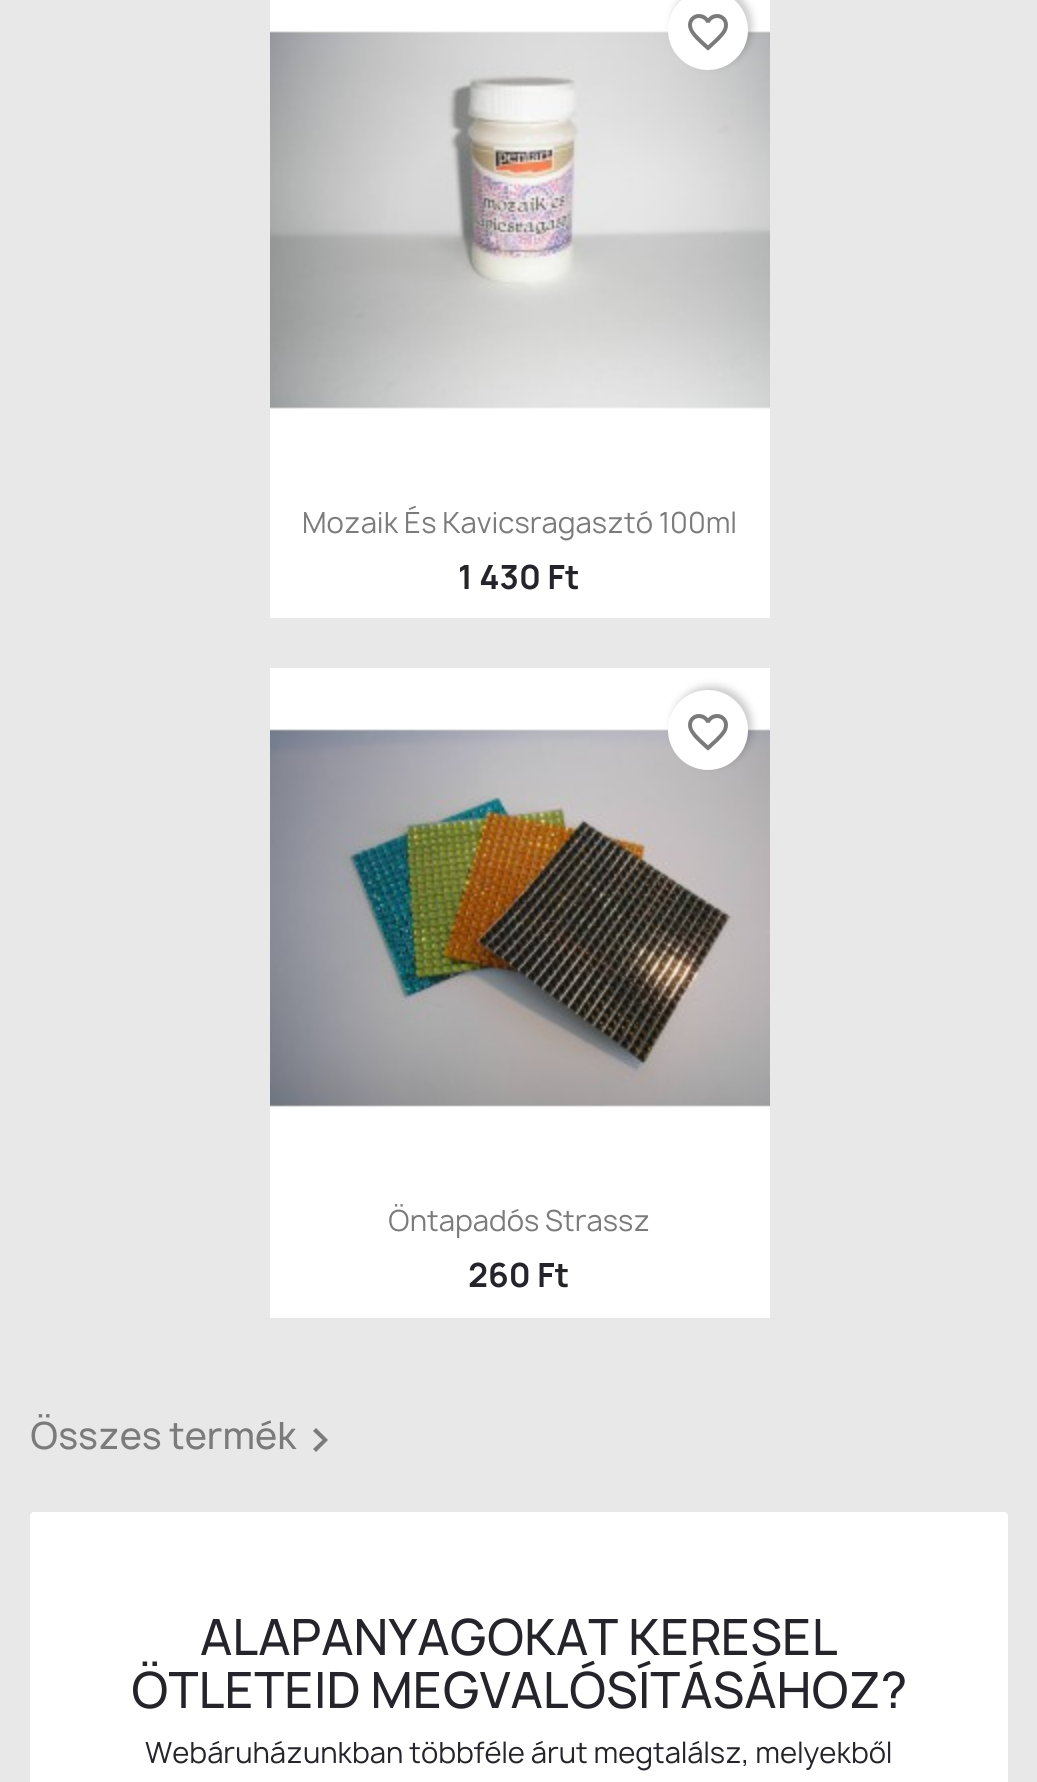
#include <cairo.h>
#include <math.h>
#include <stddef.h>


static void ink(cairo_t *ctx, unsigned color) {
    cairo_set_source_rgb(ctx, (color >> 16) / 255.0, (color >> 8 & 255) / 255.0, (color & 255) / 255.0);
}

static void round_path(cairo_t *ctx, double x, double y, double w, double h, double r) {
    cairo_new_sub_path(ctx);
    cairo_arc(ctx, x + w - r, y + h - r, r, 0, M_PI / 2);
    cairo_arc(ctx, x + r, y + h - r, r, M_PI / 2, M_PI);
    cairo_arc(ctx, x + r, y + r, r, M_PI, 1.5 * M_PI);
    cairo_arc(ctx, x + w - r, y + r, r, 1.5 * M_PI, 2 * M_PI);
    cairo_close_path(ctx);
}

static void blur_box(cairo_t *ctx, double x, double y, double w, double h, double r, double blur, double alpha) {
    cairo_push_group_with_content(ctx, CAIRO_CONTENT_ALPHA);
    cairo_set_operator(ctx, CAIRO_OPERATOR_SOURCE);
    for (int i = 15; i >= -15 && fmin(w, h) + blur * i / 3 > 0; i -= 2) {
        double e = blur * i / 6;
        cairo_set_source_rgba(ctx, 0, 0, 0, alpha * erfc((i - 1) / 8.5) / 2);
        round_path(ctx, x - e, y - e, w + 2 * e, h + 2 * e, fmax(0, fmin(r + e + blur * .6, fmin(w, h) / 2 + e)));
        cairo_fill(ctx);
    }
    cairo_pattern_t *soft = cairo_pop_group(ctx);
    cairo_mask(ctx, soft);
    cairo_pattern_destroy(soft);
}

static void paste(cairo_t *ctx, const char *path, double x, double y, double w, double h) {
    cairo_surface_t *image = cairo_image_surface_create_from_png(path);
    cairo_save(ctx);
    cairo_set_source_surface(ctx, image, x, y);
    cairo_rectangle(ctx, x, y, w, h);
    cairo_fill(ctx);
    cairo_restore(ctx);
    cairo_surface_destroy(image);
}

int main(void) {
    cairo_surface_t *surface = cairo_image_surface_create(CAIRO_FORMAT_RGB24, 1037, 1782);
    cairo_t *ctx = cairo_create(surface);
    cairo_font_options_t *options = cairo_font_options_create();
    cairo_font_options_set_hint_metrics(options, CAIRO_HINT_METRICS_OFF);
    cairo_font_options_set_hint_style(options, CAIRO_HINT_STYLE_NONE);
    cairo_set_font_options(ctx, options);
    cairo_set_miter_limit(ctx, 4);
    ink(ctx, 0xE8E8E8);
    cairo_paint(ctx);
    ink(ctx, 0xFFFFFF);
    cairo_rectangle(ctx, 270, 0, 500, 618);
    cairo_fill(ctx);
    paste(ctx, "media/2.png", 270, 31, 500, 378);
    ink(ctx, 0x000000);
    blur_box(ctx, 672, -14, 80, 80, 40, 4, 0.2);
    ink(ctx, 0xFFFFFF);
    cairo_arc(ctx, 708, 30, 40, 0, 2 * M_PI);
    cairo_fill(ctx);
    paste(ctx, "media/1.png", 688, 14, 40, 37);
    cairo_select_font_face(ctx, "Manrope", CAIRO_FONT_SLANT_NORMAL, CAIRO_FONT_WEIGHT_NORMAL);
    cairo_set_font_size(ctx, 28);
    ink(ctx, 0x7B7B7B);
    cairo_move_to(ctx, 302, 533);
    cairo_show_text(ctx, "Mozaik És Kavicsragasztó 100ml");
    cairo_select_font_face(ctx, "Manrope", CAIRO_FONT_SLANT_NORMAL, CAIRO_FONT_WEIGHT_BOLD);
    cairo_set_font_size(ctx, 32);
    ink(ctx, 0x25242A);
    cairo_move_to(ctx, 458, 589);
    cairo_show_text(ctx, "1 430 Ft");
    ink(ctx, 0xFFFFFF);
    cairo_rectangle(ctx, 270, 668, 500, 650);
    cairo_fill(ctx);
    paste(ctx, "media/3.png", 270, 729, 500, 380);
    ink(ctx, 0x000000);
    blur_box(ctx, 672, 686, 80, 80, 40, 4, 0.2);
    ink(ctx, 0xFFFFFF);
    cairo_arc(ctx, 708, 730, 40, 0, 2 * M_PI);
    cairo_fill(ctx);
    paste(ctx, "media/1.png", 688, 714, 40, 37);
    cairo_select_font_face(ctx, "Manrope", CAIRO_FONT_SLANT_NORMAL, CAIRO_FONT_WEIGHT_NORMAL);
    cairo_set_font_size(ctx, 28);
    ink(ctx, 0x7B7B7B);
    cairo_move_to(ctx, 388, 1231);
    cairo_show_text(ctx, "Öntapadós Strassz");
    cairo_select_font_face(ctx, "Manrope", CAIRO_FONT_SLANT_NORMAL, CAIRO_FONT_WEIGHT_BOLD);
    cairo_set_font_size(ctx, 32);
    ink(ctx, 0x25242A);
    cairo_move_to(ctx, 468, 1287);
    cairo_show_text(ctx, "260 Ft");
    cairo_select_font_face(ctx, "Manrope Medium", CAIRO_FONT_SLANT_NORMAL, CAIRO_FONT_WEIGHT_NORMAL);
    cairo_set_font_size(ctx, 36);
    ink(ctx, 0x7B7B7B);
    cairo_move_to(ctx, 30, 1449);
    cairo_show_text(ctx, "Összes termék");
    cairo_new_path(ctx);
    cairo_move_to(ctx, 313, 1449);
    cairo_line_to(ctx, 322.5, 1440);
    cairo_line_to(ctx, 313, 1431);
    cairo_line_to(ctx, 316, 1428);
    cairo_line_to(ctx, 328, 1440);
    cairo_line_to(ctx, 316, 1452);
    cairo_close_path(ctx);
    cairo_fill(ctx);
    ink(ctx, 0xFFFFFF);
    round_path(ctx, 30, 1512, 978, 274, 4);
    cairo_fill(ctx);
    cairo_set_font_size(ctx, 48);
    ink(ctx, 0x25242A);
    cairo_move_to(ctx, 200, 1655);
    cairo_show_text(ctx, "ALAPANYAGOKAT KERESEL");
    cairo_move_to(ctx, 131, 1708);
    cairo_show_text(ctx, "ÖTLETEID MEGVALÓSÍTÁSÁHOZ?");
    cairo_select_font_face(ctx, "Manrope", CAIRO_FONT_SLANT_NORMAL, CAIRO_FONT_WEIGHT_NORMAL);
    cairo_set_font_size(ctx, 28);
    cairo_move_to(ctx, 145, 1763);
    cairo_show_text(ctx, "Webáruházunkban többféle árut megtalálsz, melyekből");
    cairo_surface_write_to_png(surface, "image.png");
    cairo_font_options_destroy(options);
    cairo_destroy(ctx);
    cairo_surface_destroy(surface);
    return 0;
}
